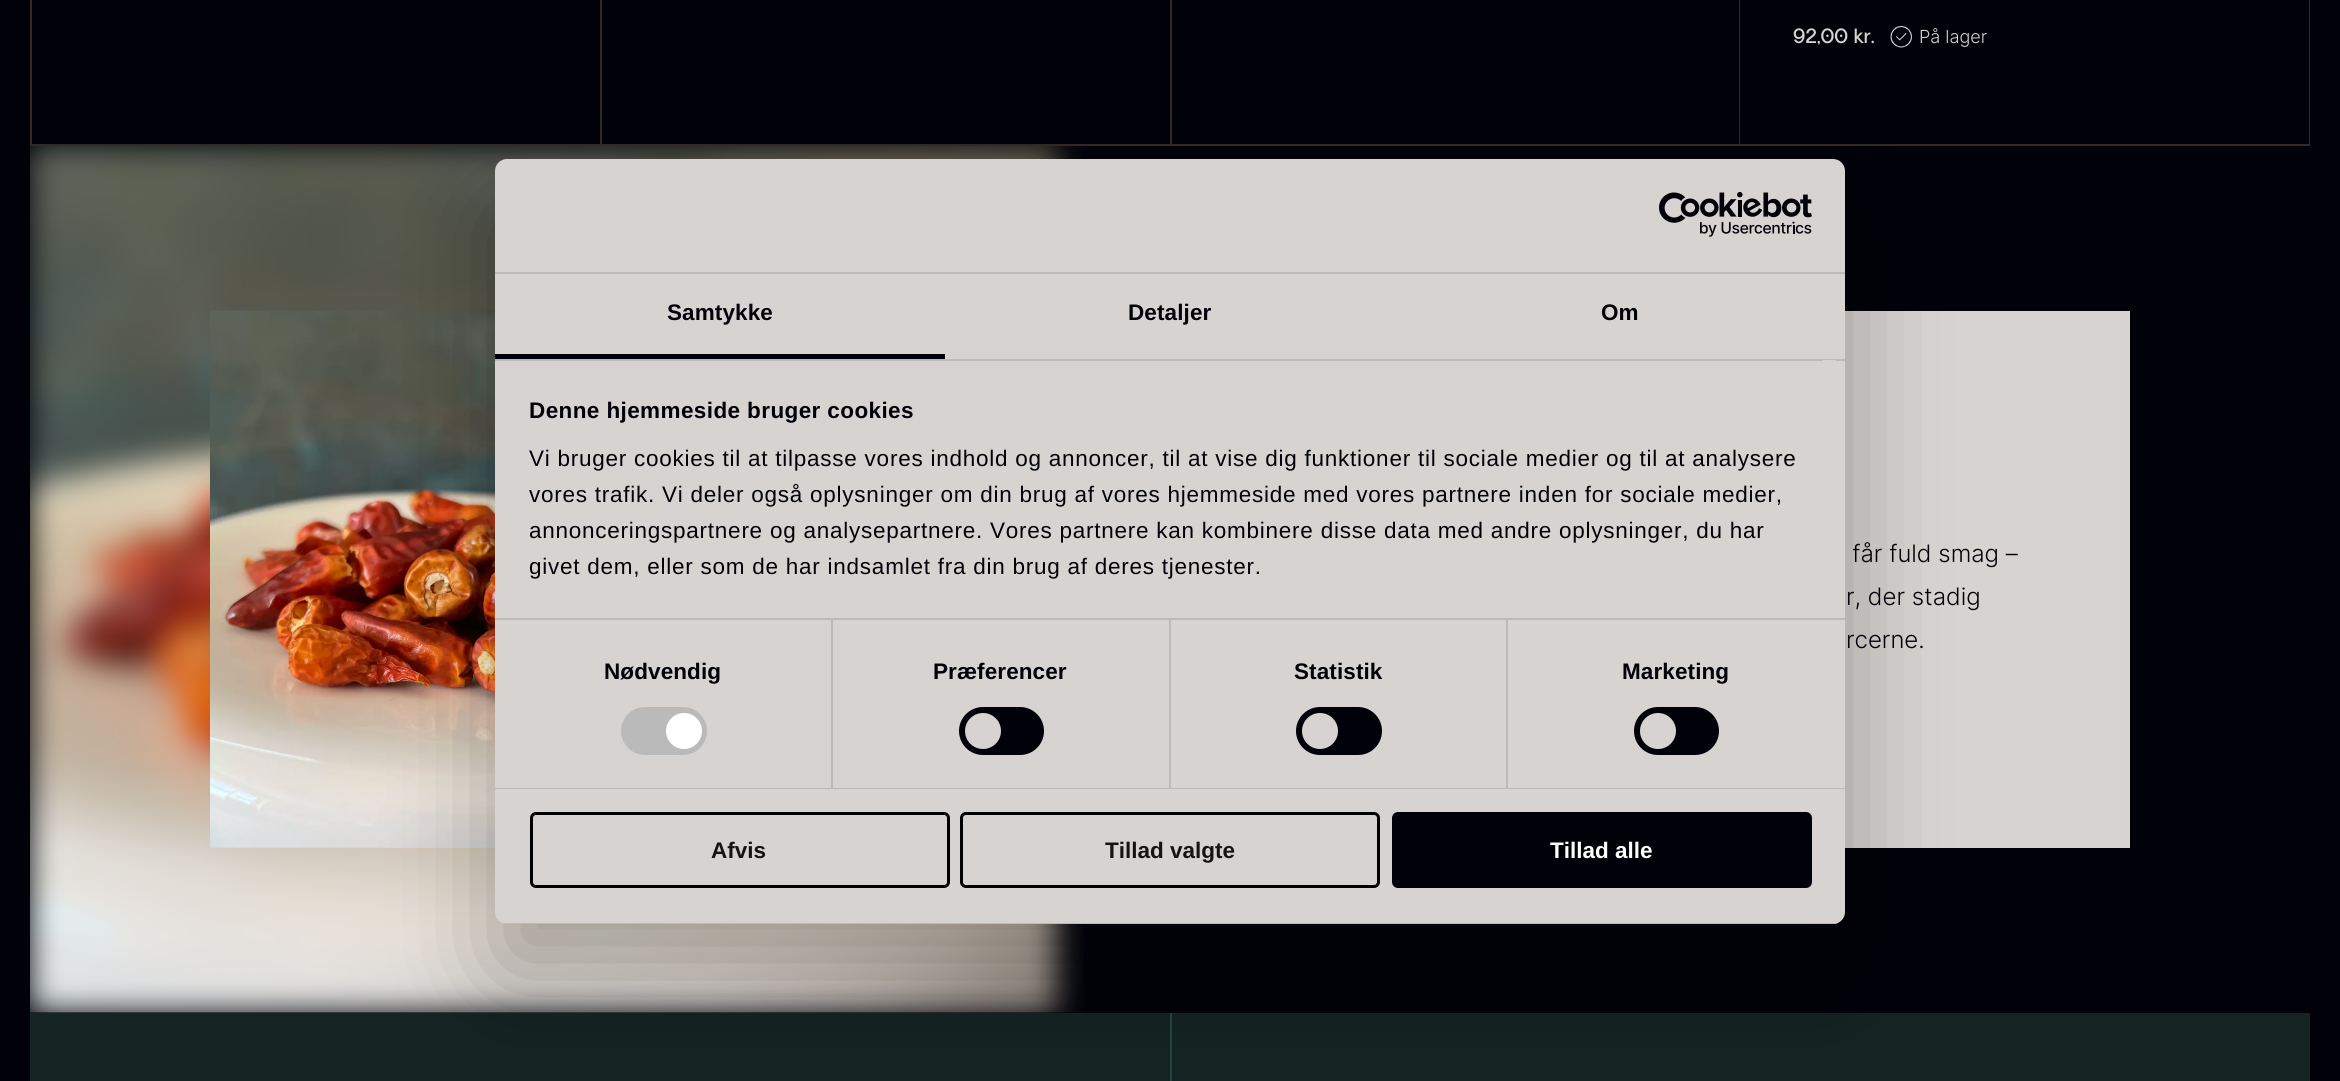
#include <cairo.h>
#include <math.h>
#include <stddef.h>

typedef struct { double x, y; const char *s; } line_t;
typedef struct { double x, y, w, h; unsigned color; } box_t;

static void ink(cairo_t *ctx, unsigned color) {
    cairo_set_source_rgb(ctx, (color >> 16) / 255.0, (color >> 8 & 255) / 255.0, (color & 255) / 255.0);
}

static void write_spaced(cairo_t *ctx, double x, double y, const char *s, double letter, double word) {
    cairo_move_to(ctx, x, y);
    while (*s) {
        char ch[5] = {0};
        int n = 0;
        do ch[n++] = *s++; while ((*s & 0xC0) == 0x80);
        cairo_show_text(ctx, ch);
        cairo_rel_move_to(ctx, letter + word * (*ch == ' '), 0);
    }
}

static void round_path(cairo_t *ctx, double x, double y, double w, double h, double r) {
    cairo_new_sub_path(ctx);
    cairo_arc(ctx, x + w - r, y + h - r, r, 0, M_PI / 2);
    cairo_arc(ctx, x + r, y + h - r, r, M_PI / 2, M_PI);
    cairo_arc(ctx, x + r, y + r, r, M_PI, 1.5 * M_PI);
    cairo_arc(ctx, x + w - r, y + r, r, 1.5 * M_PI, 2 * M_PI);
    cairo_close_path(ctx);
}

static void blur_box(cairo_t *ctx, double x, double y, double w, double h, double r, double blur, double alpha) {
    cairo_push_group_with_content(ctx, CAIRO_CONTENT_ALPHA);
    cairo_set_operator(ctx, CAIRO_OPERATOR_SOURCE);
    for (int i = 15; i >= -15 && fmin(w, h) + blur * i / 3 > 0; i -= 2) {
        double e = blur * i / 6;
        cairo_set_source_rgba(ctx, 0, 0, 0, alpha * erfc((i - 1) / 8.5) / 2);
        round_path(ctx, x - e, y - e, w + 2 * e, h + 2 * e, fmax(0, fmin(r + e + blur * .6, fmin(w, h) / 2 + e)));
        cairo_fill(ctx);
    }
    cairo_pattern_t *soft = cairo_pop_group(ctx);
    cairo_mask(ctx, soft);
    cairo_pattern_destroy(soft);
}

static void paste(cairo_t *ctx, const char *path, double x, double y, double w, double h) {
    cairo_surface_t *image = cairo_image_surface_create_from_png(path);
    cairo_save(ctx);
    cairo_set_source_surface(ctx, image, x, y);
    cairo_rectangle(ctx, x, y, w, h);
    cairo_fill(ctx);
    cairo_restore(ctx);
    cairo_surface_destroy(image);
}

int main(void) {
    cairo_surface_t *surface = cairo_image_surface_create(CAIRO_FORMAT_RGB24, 2340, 1081);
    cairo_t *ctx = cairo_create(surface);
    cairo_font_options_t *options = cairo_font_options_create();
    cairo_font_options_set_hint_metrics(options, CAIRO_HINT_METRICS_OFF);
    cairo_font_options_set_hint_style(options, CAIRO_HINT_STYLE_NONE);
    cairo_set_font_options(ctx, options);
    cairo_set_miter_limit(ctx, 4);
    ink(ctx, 0x010209);
    cairo_paint(ctx);
    {
        static const box_t items[] = {
            {30, 0, 2280, 146, 0x312A26},
            {32, 0, 568, 144, 0x010209},
            {602, 0, 568, 144, 0x010209},
            {1172, 0, 567, 144, 0x010209},
            {1740, 0, 569, 144, 0x010209},
        };
        for (size_t i = 0; i < sizeof items / sizeof *items; i++) {
            ink(ctx, items[i].color);
            cairo_rectangle(ctx, items[i].x, items[i].y, items[i].w, items[i].h);
            cairo_fill(ctx);
        }
    }
    paste(ctx, "media/3.png", 30, 146, 1054, 867);
    ink(ctx, 0xD7D3D0);
    cairo_rectangle(ctx, 210, 311, 1920, 537);
    cairo_fill(ctx);
    paste(ctx, "media/4.png", 210, 310, 285, 538);
    ink(ctx, 0x142423);
    cairo_rectangle(ctx, 30, 1013, 2280, 68);
    cairo_fill(ctx);
    ink(ctx, 0x254642);
    cairo_rectangle(ctx, 1170, 1013, 2, 68);
    cairo_fill(ctx);
    ink(ctx, 0x000000);
    blur_box(ctx, 495, 207, 1350, 765, 12, 51, 0.3);
    ink(ctx, 0xD7D3D0);
    round_path(ctx, 495, 159, 1350, 765, 12);
    cairo_fill(ctx);
    ink(ctx, 0xBABABA);
    cairo_rectangle(ctx, 495, 272, 1350, 2);
    cairo_fill(ctx);
    paste(ctx, "media/1.png", 1659, 192, 153, 45);
    cairo_rectangle(ctx, 495, 359, 1350, 2);
    cairo_fill(ctx);
    ink(ctx, 0x010209);
    cairo_rectangle(ctx, 495, 354, 450, 5);
    cairo_fill(ctx);
    cairo_select_font_face(ctx, "Liberation Sans", CAIRO_FONT_SLANT_NORMAL, CAIRO_FONT_WEIGHT_BOLD);
    cairo_set_font_size(ctx, 22.5);
    {
        static const line_t items[] = {
            {667, 320, "Samtykke"},
            {1128, 320, "Detaljer"},
            {1601, 320, "Om"},
        };
        for (size_t i = 0; i < sizeof items / sizeof *items; i++) {
            write_spaced(ctx, items[i].x, items[i].y, items[i].s, 0.1, 0);
        }
    }
    ink(ctx, 0xBABABA);
    cairo_rectangle(ctx, 495, 618, 1350, 2);
    cairo_fill(ctx);
    ink(ctx, 0xD7D3D0);
    cairo_rectangle(ctx, 1823, 360, 13, 1);
    cairo_fill(ctx);
    ink(ctx, 0x010209);
    write_spaced(ctx, 529, 418, "Denne hjemmeside bruger cookies", 0.4, 0);
    cairo_select_font_face(ctx, "Liberation Sans", CAIRO_FONT_SLANT_NORMAL, CAIRO_FONT_WEIGHT_NORMAL);
    {
        static const line_t items[] = {
            {529, 466, "Vi bruger cookies til at tilpasse vores indhold og annoncer, til at vise dig funktioner til sociale medier og til at analysere"},
            {529, 502, "vores trafik. Vi deler også oplysninger om din brug af vores hjemmeside med vores partnere inden for sociale medier,"},
            {529, 538, "annonceringspartnere og analysepartnere. Vores partnere kan kombinere disse data med andre oplysninger, du har"},
            {529, 574, "givet dem, eller som de har indsamlet fra din brug af deres tjenester."},
        };
        for (size_t i = 0; i < sizeof items / sizeof *items; i++) {
            write_spaced(ctx, items[i].x, items[i].y, items[i].s, 0.75, 0);
        }
    }
    ink(ctx, 0xBABABA);
    cairo_rectangle(ctx, 495, 788, 1350, 1);
    cairo_fill(ctx);
    cairo_rectangle(ctx, 831, 620, 2, 168);
    cairo_fill(ctx);
    cairo_select_font_face(ctx, "Liberation Sans", CAIRO_FONT_SLANT_NORMAL, CAIRO_FONT_WEIGHT_BOLD);
    ink(ctx, 0x010209);
    write_spaced(ctx, 604, 679, "Nødvendig", 0.1, 0);
    ink(ctx, 0xBABABA);
    round_path(ctx, 621, 707, 86, 48, 24);
    cairo_fill(ctx);
    ink(ctx, 0xFFFFFF);
    cairo_arc(ctx, 684, 731, 18, 0, 2 * M_PI);
    cairo_fill(ctx);
    ink(ctx, 0xBABABA);
    cairo_rectangle(ctx, 1169, 620, 2, 168);
    cairo_fill(ctx);
    ink(ctx, 0x010209);
    write_spaced(ctx, 933, 679, "Præferencer", 0.1, 0);
    round_path(ctx, 959, 707, 85, 48, 24);
    cairo_fill(ctx);
    ink(ctx, 0xD7D3D0);
    cairo_arc(ctx, 983, 731, 18, 0, 2 * M_PI);
    cairo_fill(ctx);
    ink(ctx, 0xBABABA);
    cairo_rectangle(ctx, 1506, 620, 2, 168);
    cairo_fill(ctx);
    ink(ctx, 0x010209);
    write_spaced(ctx, 1294, 679, "Statistik", 0.1, 0);
    round_path(ctx, 1296, 707, 86, 48, 24);
    cairo_fill(ctx);
    ink(ctx, 0xD7D3D0);
    cairo_arc(ctx, 1320, 731, 18, 0, 2 * M_PI);
    cairo_fill(ctx);
    ink(ctx, 0x010209);
    write_spaced(ctx, 1622, 679, "Marketing", 0.1, 0);
    round_path(ctx, 1634, 707, 85, 48, 24);
    cairo_fill(ctx);
    ink(ctx, 0xD7D3D0);
    cairo_arc(ctx, 1658, 731, 18, 0, 2 * M_PI);
    cairo_fill(ctx);
    cairo_save(ctx);
    round_path(ctx, 495, 159, 1350, 765, 12);
    cairo_clip(ctx);
    ink(ctx, 0xBABABA);
    cairo_rectangle(ctx, 495, 923, 1350, 1);
    cairo_fill(ctx);
    cairo_restore(ctx);
    round_path(ctx, 531.5, 813.5, 417, 73, 4.5);
    ink(ctx, 0x000000);
    cairo_set_line_width(ctx, 3);
    cairo_stroke(ctx);
    ink(ctx, 0x141414);
    cairo_move_to(ctx, 711, 858);
    cairo_show_text(ctx, "Afvis");
    round_path(ctx, 961.5, 813.5, 417, 73, 4.5);
    ink(ctx, 0x000000);
    cairo_stroke(ctx);
    ink(ctx, 0x141414);
    cairo_move_to(ctx, 1105, 858);
    cairo_show_text(ctx, "Tillad valgte");
    ink(ctx, 0x010209);
    round_path(ctx, 1393.5, 813.5, 417, 73, 4.5);
    cairo_fill_preserve(ctx);
    cairo_stroke(ctx);
    ink(ctx, 0xFFFFFF);
    cairo_move_to(ctx, 1550, 858);
    cairo_show_text(ctx, "Tillad alle");
    cairo_select_font_face(ctx, "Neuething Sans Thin", CAIRO_FONT_SLANT_NORMAL, CAIRO_FONT_WEIGHT_NORMAL);
    cairo_set_font_size(ctx, 18);
    ink(ctx, 0xD7D3D0);
    cairo_move_to(ctx, 1793, 43);
    cairo_show_text(ctx, "92,00 kr.");
    paste(ctx, "media/2.png", 1890, 26, 22, 22);
    cairo_select_font_face(ctx, "Inter Light", CAIRO_FONT_SLANT_NORMAL, CAIRO_FONT_WEIGHT_NORMAL);
    cairo_move_to(ctx, 1919, 43);
    cairo_show_text(ctx, "På lager");
    cairo_set_font_size(ctx, 24);
    ink(ctx, 0x010209);
    {
        static const line_t items[] = {
            {1852, 562, "får fuld smag –"},
            {1846, 605, "r, der stadig"},
            {1846, 648, "rcerne."},
        };
        for (size_t i = 0; i < sizeof items / sizeof *items; i++) {
            cairo_move_to(ctx, items[i].x, items[i].y);
            cairo_show_text(ctx, items[i].s);
        }
    }
    cairo_surface_write_to_png(surface, "image.png");
    cairo_font_options_destroy(options);
    cairo_destroy(ctx);
    cairo_surface_destroy(surface);
    return 0;
}
